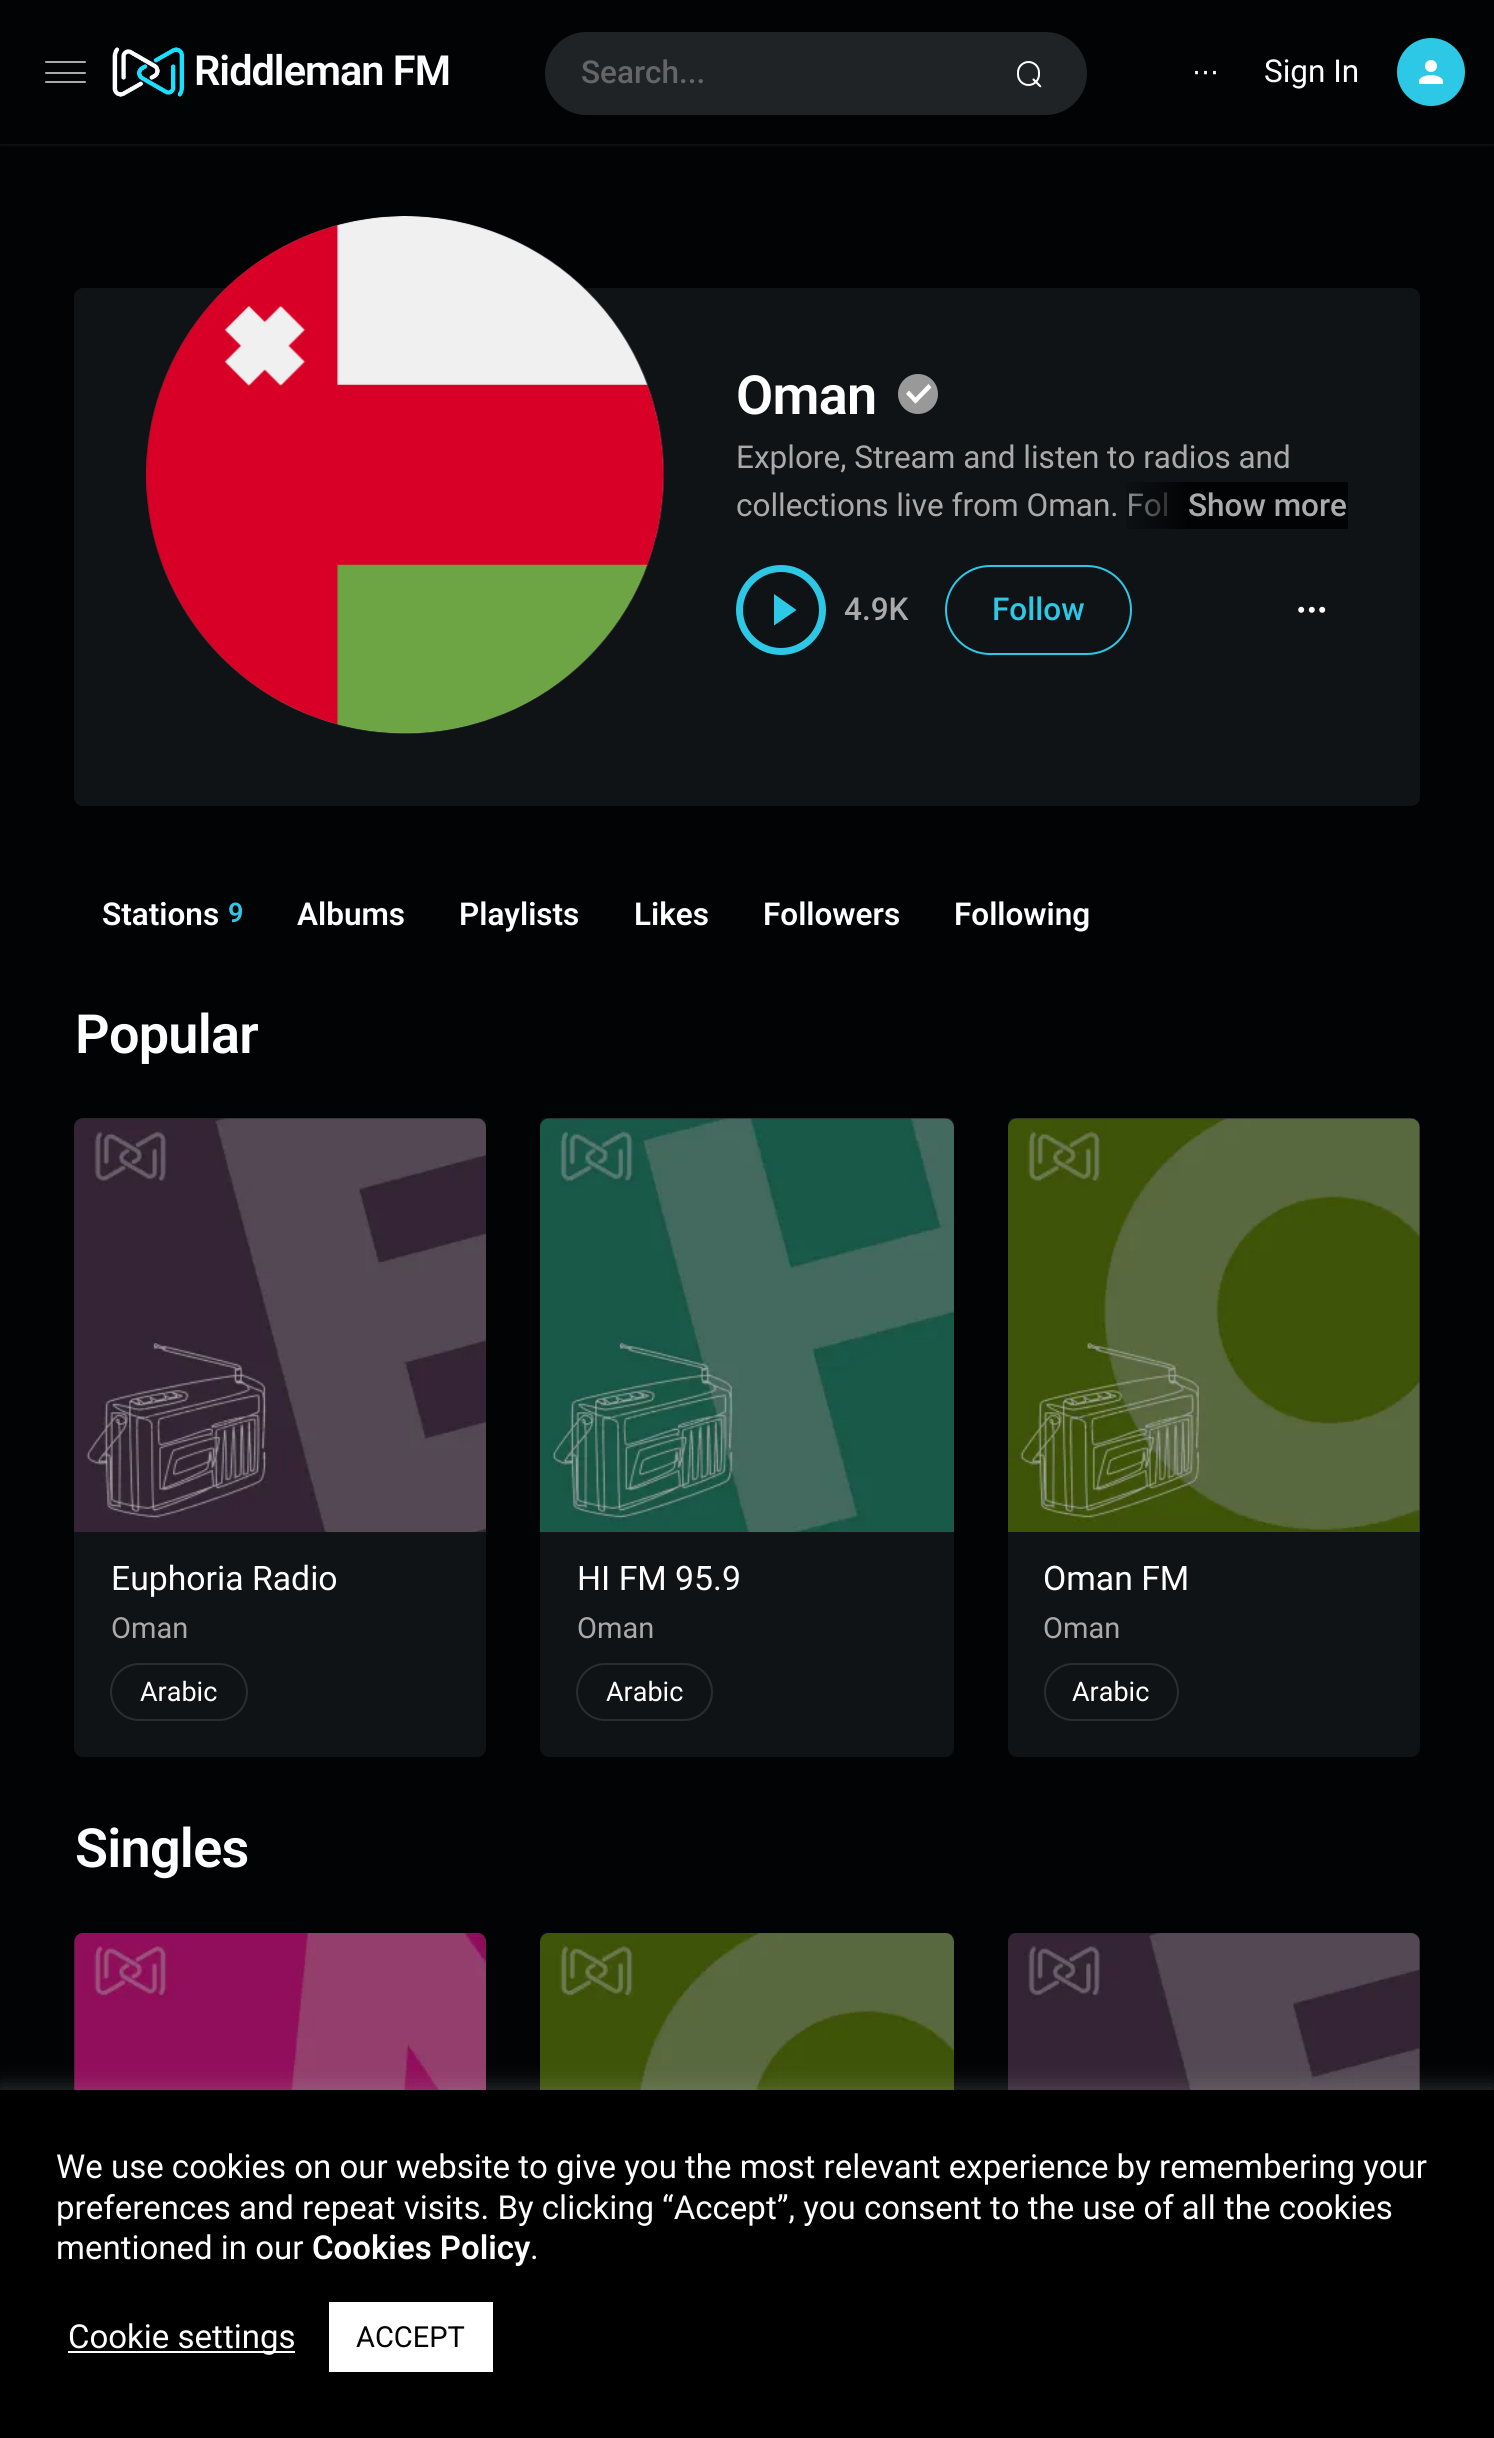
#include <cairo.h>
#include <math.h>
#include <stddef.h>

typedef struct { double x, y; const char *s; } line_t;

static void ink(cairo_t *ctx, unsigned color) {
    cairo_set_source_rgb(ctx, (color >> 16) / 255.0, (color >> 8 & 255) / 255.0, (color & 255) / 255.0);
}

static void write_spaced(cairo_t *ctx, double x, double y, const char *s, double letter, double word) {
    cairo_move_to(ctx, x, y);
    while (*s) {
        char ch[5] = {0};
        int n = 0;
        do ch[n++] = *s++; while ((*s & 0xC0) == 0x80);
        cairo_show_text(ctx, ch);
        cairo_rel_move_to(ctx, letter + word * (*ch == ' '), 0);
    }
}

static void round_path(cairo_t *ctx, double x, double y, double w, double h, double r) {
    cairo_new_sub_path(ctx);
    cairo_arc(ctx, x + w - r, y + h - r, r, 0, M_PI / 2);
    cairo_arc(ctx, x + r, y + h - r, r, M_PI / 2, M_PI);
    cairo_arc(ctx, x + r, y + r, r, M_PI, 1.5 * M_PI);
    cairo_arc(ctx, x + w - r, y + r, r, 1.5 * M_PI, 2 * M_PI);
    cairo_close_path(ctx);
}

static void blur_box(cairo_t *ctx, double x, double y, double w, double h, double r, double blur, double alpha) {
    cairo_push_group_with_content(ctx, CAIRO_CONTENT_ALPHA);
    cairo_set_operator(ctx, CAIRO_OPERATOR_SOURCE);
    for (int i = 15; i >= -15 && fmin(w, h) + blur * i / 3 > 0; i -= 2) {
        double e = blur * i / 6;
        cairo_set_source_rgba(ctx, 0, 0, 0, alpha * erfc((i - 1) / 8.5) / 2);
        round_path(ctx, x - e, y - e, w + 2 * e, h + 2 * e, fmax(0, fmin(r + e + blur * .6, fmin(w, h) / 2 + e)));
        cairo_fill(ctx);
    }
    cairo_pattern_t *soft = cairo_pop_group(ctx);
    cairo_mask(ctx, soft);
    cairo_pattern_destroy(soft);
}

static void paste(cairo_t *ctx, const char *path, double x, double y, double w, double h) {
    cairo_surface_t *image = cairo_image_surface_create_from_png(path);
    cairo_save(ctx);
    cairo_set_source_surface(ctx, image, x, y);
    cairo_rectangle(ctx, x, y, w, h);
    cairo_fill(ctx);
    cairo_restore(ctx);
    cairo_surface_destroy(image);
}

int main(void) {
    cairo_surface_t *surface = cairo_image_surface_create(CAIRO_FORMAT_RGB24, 1494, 2438);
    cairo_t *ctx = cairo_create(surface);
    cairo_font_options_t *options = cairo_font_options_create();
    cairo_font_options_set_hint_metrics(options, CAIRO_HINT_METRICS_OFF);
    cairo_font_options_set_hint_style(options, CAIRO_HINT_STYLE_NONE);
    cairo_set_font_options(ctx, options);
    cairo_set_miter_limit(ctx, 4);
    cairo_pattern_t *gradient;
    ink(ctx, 0x010305);
    cairo_paint(ctx);
    cairo_save(ctx);
    cairo_rectangle(ctx, 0, 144, 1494, 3);
    cairo_clip(ctx);
    ink(ctx, 0x828C96);
    blur_box(ctx, 0, 2, 1494, 144, 0, 1, 0.1);
    cairo_restore(ctx);
    ink(ctx, 0xAAAAAA);
    round_path(ctx, 45, 72, 41, 2, 1);
    cairo_fill(ctx);
    round_path(ctx, 45, 61, 41, 2, 1);
    cairo_fill(ctx);
    round_path(ctx, 45, 81, 41, 2, 1);
    cairo_fill(ctx);
    paste(ctx, "media/1.png", 112, 47, 73, 50);
    cairo_select_font_face(ctx, "Roboto SemiBold", CAIRO_FONT_SLANT_NORMAL, CAIRO_FONT_WEIGHT_NORMAL);
    cairo_set_font_size(ctx, 41.5);
    ink(ctx, 0xFFFFFF);
    write_spaced(ctx, 194, 85, "Riddleman FM", -1, 0);
    ink(ctx, 0x202326);
    round_path(ctx, 545, 32, 542, 83, 41.5);
    cairo_fill(ctx);
    cairo_select_font_face(ctx, "Roboto Medium", CAIRO_FONT_SLANT_NORMAL, CAIRO_FONT_WEIGHT_NORMAL);
    cairo_set_font_size(ctx, 31.5);
    ink(ctx, 0x636567);
    cairo_move_to(ctx, 581, 83);
    cairo_show_text(ctx, "Search...");
    round_path(ctx, 1018, 62, 21, 23, 10.5);
    ink(ctx, 0xFFFFFF);
    cairo_stroke(ctx);
    cairo_new_path(ctx);
    cairo_move_to(ctx, 1034, 78.5);
    cairo_line_to(ctx, 1040, 84.5);
    cairo_curve_to(ctx, 1042.5, 87, 1041, 88.5, 1038.5, 86);
    cairo_line_to(ctx, 1032.5, 80);
    cairo_curve_to(ctx, 1032, 79, 1033.5, 78, 1034, 78.5);
    cairo_close_path(ctx);
    cairo_fill(ctx);
    cairo_select_font_face(ctx, "DejaVu Sans", CAIRO_FONT_SLANT_NORMAL, CAIRO_FONT_WEIGHT_NORMAL);
    cairo_set_font_size(ctx, 27);
    cairo_move_to(ctx, 1192, 81);
    cairo_show_text(ctx, "⋯");
    cairo_select_font_face(ctx, "Roboto", CAIRO_FONT_SLANT_NORMAL, CAIRO_FONT_WEIGHT_NORMAL);
    cairo_set_font_size(ctx, 31.5);
    cairo_move_to(ctx, 1264, 82);
    cairo_show_text(ctx, "Sign In");
    ink(ctx, 0x2CC8E5);
    cairo_new_path(ctx);
    cairo_arc(ctx, 1431, 72, 34, 0, 2 * M_PI);
    cairo_fill(ctx);
    paste(ctx, "media/2.png", 1419, 60, 24, 24);
    ink(ctx, 0x101316);
    round_path(ctx, 74, 288, 1346, 518, 9);
    cairo_fill(ctx);
    ink(ctx, 0x202326);
    cairo_arc(ctx, 405, 475, 259, 0, 2 * M_PI);
    cairo_fill(ctx);
    paste(ctx, "media/3.png", 146, 216, 518, 518);
    cairo_select_font_face(ctx, "Roboto SemiBold", CAIRO_FONT_SLANT_NORMAL, CAIRO_FONT_WEIGHT_NORMAL);
    cairo_set_font_size(ctx, 54);
    ink(ctx, 0xFFFFFF);
    write_spaced(ctx, 736, 414, "Oman", -0.75, 0);
    ink(ctx, 0x999999);
    cairo_new_path(ctx);
    cairo_arc(ctx, 918, 394, 20, 0, 2 * M_PI);
    cairo_fill(ctx);
    ink(ctx, 0xFFFFFF);
    cairo_new_path(ctx);
    cairo_move_to(ctx, 912.5, 400.5);
    cairo_line_to(ctx, 928.5, 384);
    cairo_line_to(ctx, 931.5, 387.5);
    cairo_line_to(ctx, 915.5, 403.5);
    cairo_close_path(ctx);
    cairo_fill(ctx);
    cairo_new_path(ctx);
    cairo_move_to(ctx, 906, 394);
    cairo_line_to(ctx, 909, 390.5);
    cairo_line_to(ctx, 918.5, 400.5);
    cairo_line_to(ctx, 915.5, 403.5);
    cairo_close_path(ctx);
    cairo_fill(ctx);
    cairo_select_font_face(ctx, "Roboto", CAIRO_FONT_SLANT_NORMAL, CAIRO_FONT_WEIGHT_NORMAL);
    cairo_set_font_size(ctx, 31.5);
    ink(ctx, 0xAAAAAA);
    cairo_move_to(ctx, 736, 468);
    cairo_show_text(ctx, "Explore, Stream and listen to radios and");
    cairo_move_to(ctx, 736, 516);
    cairo_show_text(ctx, "collections live from Oman. Fol");
    gradient = cairo_pattern_create_linear(1116, 505, 1348, 505);
    cairo_pattern_add_color_stop_rgba(gradient, 0, 0.004, 0.012, 0.02, 0);
    cairo_pattern_add_color_stop_rgba(gradient, 0.31, 0.004, 0.012, 0.02, 1);
    cairo_set_source(ctx, gradient);
    cairo_pattern_destroy(gradient);
    cairo_rectangle(ctx, 1126, 482, 222, 47);
    cairo_fill(ctx);
    cairo_select_font_face(ctx, "Roboto Medium", CAIRO_FONT_SLANT_NORMAL, CAIRO_FONT_WEIGHT_NORMAL);
    ink(ctx, 0xAAAAAA);
    cairo_move_to(ctx, 1188, 516);
    cairo_show_text(ctx, "Show more");
    ink(ctx, 0x2CC8E5);
    cairo_new_path(ctx);
    cairo_move_to(ctx, 774, 625.5);
    cairo_line_to(ctx, 774, 594);
    cairo_line_to(ctx, 796.5, 610);
    cairo_close_path(ctx);
    cairo_fill(ctx);
    cairo_arc(ctx, 781, 610, 41.5, 0, 2 * M_PI);
    cairo_set_line_width(ctx, 7);
    cairo_stroke(ctx);
    ink(ctx, 0xAAAAAA);
    cairo_move_to(ctx, 844, 620);
    cairo_show_text(ctx, "4.9K");
    round_path(ctx, 946, 566, 185, 88, 44);
    ink(ctx, 0x2CC8E5);
    cairo_set_line_width(ctx, 2);
    cairo_stroke(ctx);
    cairo_move_to(ctx, 992, 620);
    cairo_show_text(ctx, "Follow");
    cairo_new_path(ctx);
    cairo_arc(ctx, 1301.2, 609.8, 1.5, 0, 2 * M_PI);
    ink(ctx, 0xFFFFFF);
    cairo_set_line_width(ctx, 3);
    cairo_stroke(ctx);
    cairo_arc(ctx, 1311.8, 609.8, 1.5, 0, 2 * M_PI);
    cairo_stroke(ctx);
    cairo_arc(ctx, 1322.2, 609.8, 1.5, 0, 2 * M_PI);
    cairo_stroke(ctx);
    cairo_select_font_face(ctx, "Roboto SemiBold", CAIRO_FONT_SLANT_NORMAL, CAIRO_FONT_WEIGHT_NORMAL);
    cairo_move_to(ctx, 102, 925);
    cairo_show_text(ctx, "Stations");
    cairo_set_font_size(ctx, 27);
    ink(ctx, 0x2CC8E5);
    cairo_move_to(ctx, 228, 922);
    cairo_show_text(ctx, "9");
    cairo_set_font_size(ctx, 31.5);
    ink(ctx, 0xFFFFFF);
    {
        static const line_t items[] = {
            {297, 925, "Albums"},
            {459, 925, "Playlists"},
            {634, 925, "Likes"},
            {763, 925, "Followers"},
            {954, 925, "Following"},
        };
        for (size_t i = 0; i < sizeof items / sizeof *items; i++) {
            cairo_move_to(ctx, items[i].x, items[i].y);
            cairo_show_text(ctx, items[i].s);
        }
    }
    cairo_set_font_size(ctx, 54);
    write_spaced(ctx, 75, 1053, "Popular", -0.75, 0);
    ink(ctx, 0x0D1013);
    cairo_new_path(ctx);
    cairo_move_to(ctx, 83, 1118);
    cairo_line_to(ctx, 483, 1118);
    cairo_curve_to(ctx, 486, 1120, 486, 1124, 486, 1127);
    cairo_curve_to(ctx, 486, 1122, 482, 1118, 477, 1118);
    cairo_line_to(ctx, 83, 1118);
    cairo_curve_to(ctx, 78, 1118, 74, 1122, 74, 1127);
    cairo_line_to(ctx, 74, 1748);
    cairo_line_to(ctx, 74, 1127);
    cairo_curve_to(ctx, 74, 1122, 78, 1118, 83, 1118);
    cairo_close_path(ctx);
    cairo_fill(ctx);
    ink(ctx, 0x101316);
    round_path(ctx, 74, 1118, 412, 639, 9);
    cairo_fill(ctx);
    cairo_set_source_rgba(ctx, 0.431, 0.471, 0.51, 0.2);
    cairo_new_path(ctx);
    cairo_move_to(ctx, 83, 1118);
    cairo_line_to(ctx, 477, 1118);
    cairo_curve_to(ctx, 482, 1118, 486, 1122, 486, 1127);
    cairo_line_to(ctx, 486, 1532);
    cairo_line_to(ctx, 74, 1532);
    cairo_line_to(ctx, 74, 1127);
    cairo_curve_to(ctx, 74, 1122, 78, 1118, 83, 1118);
    cairo_close_path(ctx);
    cairo_fill(ctx);
    paste(ctx, "media/4.png", 74, 1118, 412, 415);
    cairo_select_font_face(ctx, "Roboto", CAIRO_FONT_SLANT_NORMAL, CAIRO_FONT_WEIGHT_NORMAL);
    cairo_set_font_size(ctx, 33.75);
    ink(ctx, 0xFFFFFF);
    cairo_move_to(ctx, 111, 1590);
    cairo_show_text(ctx, "Euphoria Radio");
    cairo_set_font_size(ctx, 29);
    ink(ctx, 0xAAAAAA);
    cairo_move_to(ctx, 111, 1638);
    cairo_show_text(ctx, "Oman");
    round_path(ctx, 111, 1664, 136, 56, 28);
    ink(ctx, 0x2B2D30);
    cairo_set_line_width(ctx, 2);
    cairo_stroke(ctx);
    cairo_set_font_size(ctx, 27);
    ink(ctx, 0xFFFFFF);
    cairo_move_to(ctx, 140, 1701);
    cairo_show_text(ctx, "Arabic");
    ink(ctx, 0x0D1013);
    cairo_new_path(ctx);
    cairo_move_to(ctx, 951, 1118);
    cairo_line_to(ctx, 543, 1118);
    cairo_curve_to(ctx, 540, 1120, 540, 1124, 540, 1127);
    cairo_curve_to(ctx, 540, 1122, 544, 1118, 549, 1118);
    cairo_line_to(ctx, 945, 1118);
    cairo_curve_to(ctx, 950, 1118, 954, 1122, 954, 1127);
    cairo_curve_to(ctx, 954, 1124, 954, 1120, 951, 1118);
    cairo_close_path(ctx);
    cairo_fill(ctx);
    ink(ctx, 0x101316);
    round_path(ctx, 540, 1118, 414, 639, 9);
    cairo_fill(ctx);
    cairo_set_source_rgba(ctx, 0.431, 0.471, 0.51, 0.2);
    cairo_new_path(ctx);
    cairo_move_to(ctx, 549, 1118);
    cairo_line_to(ctx, 945, 1118);
    cairo_curve_to(ctx, 950, 1118, 954, 1122, 954, 1127);
    cairo_line_to(ctx, 954, 1532);
    cairo_line_to(ctx, 540, 1532);
    cairo_line_to(ctx, 540, 1127);
    cairo_curve_to(ctx, 540, 1122, 544, 1118, 549, 1118);
    cairo_close_path(ctx);
    cairo_fill(ctx);
    paste(ctx, "media/5.png", 540, 1118, 414, 415);
    cairo_set_font_size(ctx, 33.75);
    ink(ctx, 0xFFFFFF);
    cairo_move_to(ctx, 577, 1590);
    cairo_show_text(ctx, "HI FM 95.9");
    cairo_set_font_size(ctx, 29);
    ink(ctx, 0xAAAAAA);
    cairo_move_to(ctx, 577, 1638);
    cairo_show_text(ctx, "Oman");
    round_path(ctx, 577, 1664, 135, 56, 28);
    ink(ctx, 0x2B2D30);
    cairo_stroke(ctx);
    cairo_set_font_size(ctx, 27);
    ink(ctx, 0xFFFFFF);
    cairo_move_to(ctx, 606, 1701);
    cairo_show_text(ctx, "Arabic");
    ink(ctx, 0x0D1013);
    cairo_new_path(ctx);
    cairo_move_to(ctx, 1420, 1746);
    cairo_line_to(ctx, 1420, 1748);
    cairo_line_to(ctx, 1420, 1127);
    cairo_curve_to(ctx, 1420, 1122, 1416, 1118, 1411, 1118);
    cairo_line_to(ctx, 1017, 1118);
    cairo_curve_to(ctx, 1012, 1118, 1008, 1122, 1008, 1127);
    cairo_curve_to(ctx, 1008, 1124, 1008, 1120, 1011, 1118);
    cairo_line_to(ctx, 1411, 1118);
    cairo_curve_to(ctx, 1416, 1118, 1420, 1122, 1420, 1127);
    cairo_close_path(ctx);
    cairo_fill(ctx);
    ink(ctx, 0x101316);
    round_path(ctx, 1008, 1118, 412, 639, 9);
    cairo_fill(ctx);
    cairo_set_source_rgba(ctx, 0.431, 0.471, 0.51, 0.2);
    cairo_new_path(ctx);
    cairo_move_to(ctx, 1017, 1118);
    cairo_line_to(ctx, 1411, 1118);
    cairo_curve_to(ctx, 1416, 1118, 1420, 1122, 1420, 1127);
    cairo_line_to(ctx, 1420, 1532);
    cairo_line_to(ctx, 1008, 1532);
    cairo_line_to(ctx, 1008, 1127);
    cairo_curve_to(ctx, 1008, 1122, 1012, 1118, 1017, 1118);
    cairo_close_path(ctx);
    cairo_fill(ctx);
    paste(ctx, "media/6.png", 1008, 1118, 412, 414);
    cairo_set_font_size(ctx, 33.75);
    ink(ctx, 0xFFFFFF);
    cairo_move_to(ctx, 1043, 1590);
    cairo_show_text(ctx, "Oman FM");
    cairo_set_font_size(ctx, 29);
    ink(ctx, 0xAAAAAA);
    cairo_move_to(ctx, 1043, 1638);
    cairo_show_text(ctx, "Oman");
    round_path(ctx, 1045, 1664, 133, 56, 28);
    ink(ctx, 0x2B2D30);
    cairo_stroke(ctx);
    cairo_set_font_size(ctx, 27);
    ink(ctx, 0xFFFFFF);
    cairo_move_to(ctx, 1072, 1701);
    cairo_show_text(ctx, "Arabic");
    cairo_select_font_face(ctx, "Roboto SemiBold", CAIRO_FONT_SLANT_NORMAL, CAIRO_FONT_WEIGHT_NORMAL);
    cairo_set_font_size(ctx, 54);
    write_spaced(ctx, 75, 1867, "Singles", -0.75, 0);
    ink(ctx, 0x0D1013);
    cairo_set_fill_rule(ctx, CAIRO_FILL_RULE_EVEN_ODD);
    cairo_new_path(ctx);
    cairo_move_to(ctx, 77, 1936);
    cairo_curve_to(ctx, 75, 1937, 74, 1940, 74, 1942);
    cairo_line_to(ctx, 74, 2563);
    cairo_line_to(ctx, 74, 1942);
    cairo_curve_to(ctx, 74, 1939, 75, 1937, 77, 1936);
    cairo_close_path(ctx);
    cairo_move_to(ctx, 486, 1942);
    cairo_curve_to(ctx, 486, 1938, 485, 1935, 483, 1933);
    cairo_line_to(ctx, 479, 1933);
    cairo_curve_to(ctx, 483, 1934, 486, 1938, 486, 1942);
    cairo_close_path(ctx);
    cairo_fill(ctx);
    ink(ctx, 0x101316);
    round_path(ctx, 74, 1933, 412, 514, 9);
    cairo_fill(ctx);
    cairo_set_source_rgba(ctx, 0.431, 0.471, 0.51, 0.2);
    cairo_new_path(ctx);
    cairo_move_to(ctx, 83, 1933);
    cairo_line_to(ctx, 477, 1933);
    cairo_curve_to(ctx, 482, 1933, 486, 1937, 486, 1942);
    cairo_line_to(ctx, 486, 2347);
    cairo_line_to(ctx, 74, 2347);
    cairo_line_to(ctx, 74, 1942);
    cairo_curve_to(ctx, 74, 1937, 78, 1933, 83, 1933);
    cairo_close_path(ctx);
    cairo_fill(ctx);
    paste(ctx, "media/7.png", 74, 1933, 412, 157);
    ink(ctx, 0x0D1013);
    cairo_new_path(ctx);
    cairo_move_to(ctx, 547, 1933);
    cairo_line_to(ctx, 543, 1933);
    cairo_curve_to(ctx, 541, 1935, 540, 1938, 540, 1942);
    cairo_curve_to(ctx, 540, 1938, 543, 1934, 547, 1933);
    cairo_close_path(ctx);
    cairo_move_to(ctx, 951, 1933);
    cairo_line_to(ctx, 947, 1933);
    cairo_curve_to(ctx, 951, 1934, 954, 1938, 954, 1942);
    cairo_curve_to(ctx, 954, 1938, 953, 1935, 951, 1933);
    cairo_close_path(ctx);
    cairo_fill(ctx);
    ink(ctx, 0x101316);
    round_path(ctx, 540, 1933, 414, 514, 9);
    cairo_fill(ctx);
    cairo_set_source_rgba(ctx, 0.431, 0.471, 0.51, 0.2);
    cairo_new_path(ctx);
    cairo_move_to(ctx, 549, 1933);
    cairo_line_to(ctx, 945, 1933);
    cairo_curve_to(ctx, 950, 1933, 954, 1937, 954, 1942);
    cairo_line_to(ctx, 954, 2347);
    cairo_line_to(ctx, 540, 2347);
    cairo_line_to(ctx, 540, 1942);
    cairo_curve_to(ctx, 540, 1937, 544, 1933, 549, 1933);
    cairo_close_path(ctx);
    cairo_fill(ctx);
    paste(ctx, "media/8.png", 540, 1933, 414, 157);
    ink(ctx, 0x0D1013);
    cairo_new_path(ctx);
    cairo_move_to(ctx, 1015, 1933);
    cairo_line_to(ctx, 1011, 1933);
    cairo_curve_to(ctx, 1009, 1935, 1008, 1938, 1008, 1942);
    cairo_curve_to(ctx, 1008, 1938, 1011, 1934, 1015, 1933);
    cairo_close_path(ctx);
    cairo_move_to(ctx, 1420, 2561);
    cairo_line_to(ctx, 1420, 1942);
    cairo_curve_to(ctx, 1420, 1939, 1419, 1937, 1417, 1936);
    cairo_curve_to(ctx, 1419, 1937, 1420, 1939, 1420, 1942);
    cairo_line_to(ctx, 1420, 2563);
    cairo_close_path(ctx);
    cairo_fill(ctx);
    ink(ctx, 0x101316);
    round_path(ctx, 1008, 1933, 412, 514, 9);
    cairo_fill(ctx);
    cairo_set_source_rgba(ctx, 0.431, 0.471, 0.51, 0.2);
    cairo_new_path(ctx);
    cairo_move_to(ctx, 1017, 1933);
    cairo_line_to(ctx, 1411, 1933);
    cairo_curve_to(ctx, 1416, 1933, 1420, 1937, 1420, 1942);
    cairo_line_to(ctx, 1420, 2347);
    cairo_line_to(ctx, 1008, 2347);
    cairo_line_to(ctx, 1008, 1942);
    cairo_curve_to(ctx, 1008, 1937, 1012, 1933, 1017, 1933);
    cairo_close_path(ctx);
    cairo_fill(ctx);
    paste(ctx, "media/9.png", 1008, 1933, 412, 157);
    ink(ctx, 0xACABAB);
    blur_box(ctx, 0, 2088, 1494, 349, 0, 11, 0.3);
    ink(ctx, 0x000000);
    cairo_rectangle(ctx, 0, 2090, 1494, 348);
    cairo_fill(ctx);
    cairo_select_font_face(ctx, "Roboto", CAIRO_FONT_SLANT_NORMAL, CAIRO_FONT_WEIGHT_NORMAL);
    cairo_set_font_size(ctx, 33);
    ink(ctx, 0xFFFFFF);
    {
        static const line_t items[] = {
            {56, 2178, "We use cookies on our website to give you the most relevant experience by remembering your"},
            {56, 2219, "preferences and repeat visits. By clicking “Accept”, you consent to the use of all the cookies"},
            {56, 2259, "mentioned in our"},
        };
        for (size_t i = 0; i < sizeof items / sizeof *items; i++) {
            cairo_move_to(ctx, items[i].x, items[i].y);
            cairo_show_text(ctx, items[i].s);
        }
    }
    cairo_select_font_face(ctx, "Roboto SemiBold", CAIRO_FONT_SLANT_NORMAL, CAIRO_FONT_WEIGHT_NORMAL);
    cairo_move_to(ctx, 312, 2259);
    cairo_show_text(ctx, "Cookies Policy");
    cairo_select_font_face(ctx, "Roboto", CAIRO_FONT_SLANT_NORMAL, CAIRO_FONT_WEIGHT_NORMAL);
    cairo_move_to(ctx, 530, 2259);
    cairo_show_text(ctx, ".");
    cairo_rectangle(ctx, 68, 2351, 227, 2);
    cairo_fill(ctx);
    cairo_move_to(ctx, 68, 2348);
    cairo_show_text(ctx, "Cookie settings");
    cairo_rectangle(ctx, 329, 2302, 164, 70);
    cairo_fill(ctx);
    cairo_set_font_size(ctx, 29);
    ink(ctx, 0x000000);
    cairo_move_to(ctx, 356, 2347);
    cairo_show_text(ctx, "ACCEPT");
    cairo_surface_write_to_png(surface, "image.png");
    cairo_font_options_destroy(options);
    cairo_destroy(ctx);
    cairo_surface_destroy(surface);
    return 0;
}
